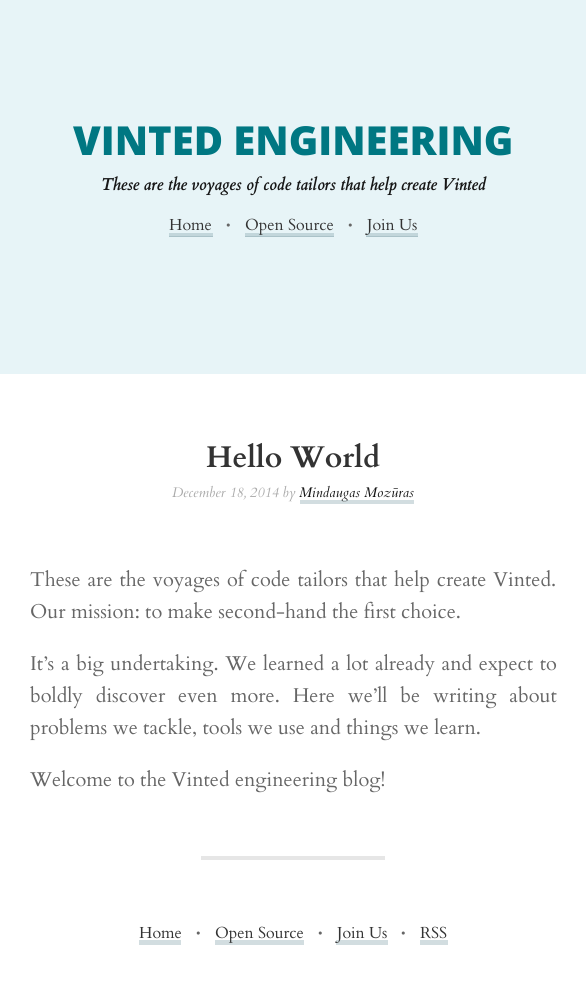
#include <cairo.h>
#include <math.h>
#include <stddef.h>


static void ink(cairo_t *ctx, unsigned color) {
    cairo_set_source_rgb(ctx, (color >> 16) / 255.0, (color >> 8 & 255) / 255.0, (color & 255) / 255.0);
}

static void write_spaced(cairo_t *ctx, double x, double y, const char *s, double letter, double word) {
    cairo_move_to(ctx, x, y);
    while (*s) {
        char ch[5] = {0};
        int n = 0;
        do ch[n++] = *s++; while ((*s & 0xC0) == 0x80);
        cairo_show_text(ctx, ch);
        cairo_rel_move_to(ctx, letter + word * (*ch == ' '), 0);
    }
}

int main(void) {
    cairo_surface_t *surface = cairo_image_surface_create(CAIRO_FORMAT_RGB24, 586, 989);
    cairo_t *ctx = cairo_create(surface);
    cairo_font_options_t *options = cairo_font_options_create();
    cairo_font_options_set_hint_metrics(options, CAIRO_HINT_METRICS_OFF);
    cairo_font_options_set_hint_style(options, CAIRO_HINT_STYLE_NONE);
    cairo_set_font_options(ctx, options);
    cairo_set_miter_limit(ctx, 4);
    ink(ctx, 0xFFFFFF);
    cairo_paint(ctx);
    ink(ctx, 0xE7F4F7);
    cairo_rectangle(ctx, 0, 0, 586, 374);
    cairo_fill(ctx);
    cairo_select_font_face(ctx, "Open Sans ExtraBold", CAIRO_FONT_SLANT_NORMAL, CAIRO_FONT_WEIGHT_NORMAL);
    cairo_set_font_size(ctx, 40);
    ink(ctx, 0x007782);
    cairo_move_to(ctx, 73, 155);
    cairo_show_text(ctx, "VINTED ENGINEERING");
    cairo_select_font_face(ctx, "Cardo", CAIRO_FONT_SLANT_ITALIC, CAIRO_FONT_WEIGHT_BOLD);
    cairo_set_font_size(ctx, 16.6);
    ink(ctx, 0x171717);
    cairo_move_to(ctx, 101, 190);
    cairo_show_text(ctx, "These are the voyages of code tailors that help create Vinted");
    cairo_select_font_face(ctx, "Cardo", CAIRO_FONT_SLANT_NORMAL, CAIRO_FONT_WEIGHT_NORMAL);
    cairo_set_font_size(ctx, 16);
    ink(ctx, 0x333333);
    cairo_move_to(ctx, 169, 230);
    cairo_show_text(ctx, "Home");
    ink(ctx, 0xC2D6DB);
    cairo_rectangle(ctx, 169, 233, 44, 3);
    cairo_fill(ctx);
    ink(ctx, 0xAAC2C8);
    cairo_rectangle(ctx, 169, 236, 44, 1);
    cairo_fill(ctx);
    cairo_set_font_size(ctx, 13);
    ink(ctx, 0x666666);
    cairo_move_to(ctx, 226, 230);
    cairo_show_text(ctx, "•");
    ink(ctx, 0xC2D6DB);
    cairo_rectangle(ctx, 245, 233, 89, 3);
    cairo_fill(ctx);
    cairo_set_font_size(ctx, 16);
    ink(ctx, 0x333333);
    cairo_move_to(ctx, 245, 230);
    cairo_show_text(ctx, "Open Source");
    ink(ctx, 0xAAC2C8);
    cairo_rectangle(ctx, 245, 236, 89, 1);
    cairo_fill(ctx);
    cairo_set_font_size(ctx, 13);
    ink(ctx, 0x666666);
    cairo_move_to(ctx, 348, 230);
    cairo_show_text(ctx, "•");
    ink(ctx, 0xC2D6DB);
    cairo_rectangle(ctx, 366, 233, 52, 3);
    cairo_fill(ctx);
    cairo_set_font_size(ctx, 16);
    ink(ctx, 0x333333);
    cairo_move_to(ctx, 367, 230);
    cairo_show_text(ctx, "Join Us");
    ink(ctx, 0xAAC2C8);
    cairo_rectangle(ctx, 366, 236, 52, 1);
    cairo_fill(ctx);
    cairo_select_font_face(ctx, "Cardo", CAIRO_FONT_SLANT_NORMAL, CAIRO_FONT_WEIGHT_BOLD);
    cairo_set_font_size(ctx, 30);
    ink(ctx, 0x333333);
    cairo_move_to(ctx, 206, 467);
    cairo_show_text(ctx, "Hello World");
    cairo_select_font_face(ctx, "Cardo", CAIRO_FONT_SLANT_ITALIC, CAIRO_FONT_WEIGHT_NORMAL);
    cairo_set_font_size(ctx, 14);
    ink(ctx, 0xAAAAAA);
    cairo_move_to(ctx, 172, 497);
    cairo_show_text(ctx, "December 18, 2014 by");
    ink(ctx, 0xD2DDE0);
    cairo_rectangle(ctx, 300, 500, 114, 4);
    cairo_fill(ctx);
    ink(ctx, 0x171717);
    cairo_move_to(ctx, 299, 497);
    cairo_show_text(ctx, "Mindaugas Mozūras");
    cairo_select_font_face(ctx, "Cardo", CAIRO_FONT_SLANT_NORMAL, CAIRO_FONT_WEIGHT_NORMAL);
    cairo_set_font_size(ctx, 20);
    ink(ctx, 0x666666);
    write_spaced(ctx, 30, 586, "These are the voyages of code tailors that help create Vinted.", 0, 1.6);
    cairo_move_to(ctx, 30, 618);
    cairo_show_text(ctx, "Our mission: to make second-hand the first choice.");
    write_spaced(ctx, 30, 670, "It’s a big undertaking. We learned a lot already and expect to", 0, 1.25);
    write_spaced(ctx, 30, 702, "boldly discover even more. Here we’ll be writing about", 0, 7.5);
    cairo_move_to(ctx, 30, 734);
    cairo_show_text(ctx, "problems we tackle, tools we use and things we learn.");
    cairo_move_to(ctx, 30, 786);
    cairo_show_text(ctx, "Welcome to the Vinted engineering blog!");
    ink(ctx, 0xE6E6E6);
    cairo_rectangle(ctx, 201, 856, 184, 4);
    cairo_fill(ctx);
    cairo_set_font_size(ctx, 16);
    ink(ctx, 0x333333);
    cairo_move_to(ctx, 139, 938);
    cairo_show_text(ctx, "Home");
    ink(ctx, 0xD2DDE0);
    cairo_rectangle(ctx, 139, 940, 42, 5);
    cairo_fill(ctx);
    cairo_set_font_size(ctx, 13);
    ink(ctx, 0x666666);
    cairo_move_to(ctx, 196, 938);
    cairo_show_text(ctx, "•");
    ink(ctx, 0xD2DDE0);
    cairo_rectangle(ctx, 215, 940, 89, 5);
    cairo_fill(ctx);
    cairo_set_font_size(ctx, 16);
    ink(ctx, 0x333333);
    cairo_move_to(ctx, 215, 938);
    cairo_show_text(ctx, "Open Source");
    cairo_set_font_size(ctx, 13);
    ink(ctx, 0x666666);
    cairo_move_to(ctx, 318, 938);
    cairo_show_text(ctx, "•");
    ink(ctx, 0xD2DDE0);
    cairo_rectangle(ctx, 336, 940, 52, 5);
    cairo_fill(ctx);
    cairo_set_font_size(ctx, 16);
    ink(ctx, 0x333333);
    cairo_move_to(ctx, 337, 938);
    cairo_show_text(ctx, "Join Us");
    cairo_set_font_size(ctx, 13);
    ink(ctx, 0x666666);
    cairo_move_to(ctx, 401, 938);
    cairo_show_text(ctx, "•");
    cairo_set_font_size(ctx, 16);
    ink(ctx, 0x333333);
    cairo_move_to(ctx, 420, 938);
    cairo_show_text(ctx, "RSS");
    ink(ctx, 0xD2DDE0);
    cairo_rectangle(ctx, 420, 940, 28, 5);
    cairo_fill(ctx);
    cairo_surface_write_to_png(surface, "image.png");
    cairo_font_options_destroy(options);
    cairo_destroy(ctx);
    cairo_surface_destroy(surface);
    return 0;
}
